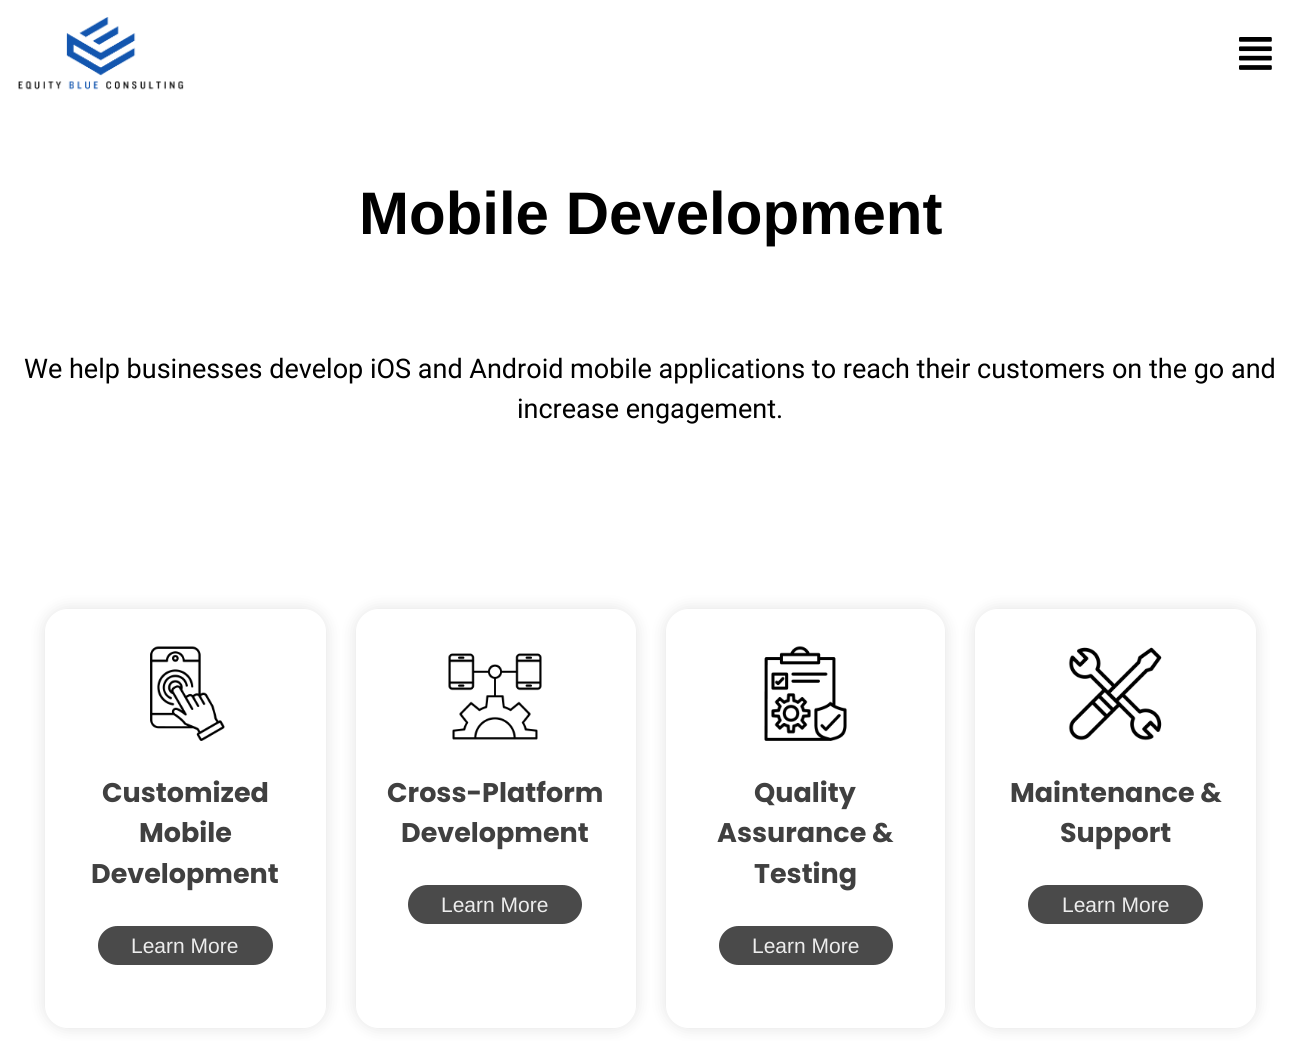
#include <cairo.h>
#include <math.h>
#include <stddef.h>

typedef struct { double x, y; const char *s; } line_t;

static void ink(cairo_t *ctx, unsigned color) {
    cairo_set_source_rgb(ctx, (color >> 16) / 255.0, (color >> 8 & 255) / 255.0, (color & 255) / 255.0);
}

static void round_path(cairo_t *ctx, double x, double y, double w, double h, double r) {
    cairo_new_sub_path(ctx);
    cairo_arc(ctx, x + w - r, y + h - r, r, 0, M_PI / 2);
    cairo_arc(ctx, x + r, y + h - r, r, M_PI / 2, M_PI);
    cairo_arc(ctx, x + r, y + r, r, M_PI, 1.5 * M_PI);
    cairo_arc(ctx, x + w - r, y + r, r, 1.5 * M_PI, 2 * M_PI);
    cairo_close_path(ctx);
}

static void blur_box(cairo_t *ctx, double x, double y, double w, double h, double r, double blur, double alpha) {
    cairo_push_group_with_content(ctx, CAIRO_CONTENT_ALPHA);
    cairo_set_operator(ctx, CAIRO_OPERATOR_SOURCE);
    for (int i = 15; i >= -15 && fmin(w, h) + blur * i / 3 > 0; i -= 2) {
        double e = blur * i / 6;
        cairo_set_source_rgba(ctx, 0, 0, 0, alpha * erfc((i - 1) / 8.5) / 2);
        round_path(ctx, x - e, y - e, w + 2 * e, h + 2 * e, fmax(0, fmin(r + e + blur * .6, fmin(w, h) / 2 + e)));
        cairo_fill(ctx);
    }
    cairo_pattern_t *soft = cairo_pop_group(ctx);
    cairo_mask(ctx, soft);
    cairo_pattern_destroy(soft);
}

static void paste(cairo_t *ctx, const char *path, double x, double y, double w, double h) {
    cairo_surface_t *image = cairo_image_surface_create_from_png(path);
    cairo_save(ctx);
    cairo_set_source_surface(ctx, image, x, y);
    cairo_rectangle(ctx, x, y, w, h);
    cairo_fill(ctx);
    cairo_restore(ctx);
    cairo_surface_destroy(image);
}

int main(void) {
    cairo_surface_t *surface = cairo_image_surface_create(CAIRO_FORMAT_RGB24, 1300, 1041);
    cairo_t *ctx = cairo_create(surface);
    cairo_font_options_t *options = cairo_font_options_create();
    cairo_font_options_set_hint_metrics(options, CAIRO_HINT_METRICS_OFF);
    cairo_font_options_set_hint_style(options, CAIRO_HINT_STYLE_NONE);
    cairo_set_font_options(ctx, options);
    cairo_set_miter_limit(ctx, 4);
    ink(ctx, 0xFFFFFF);
    cairo_paint(ctx);
    paste(ctx, "media/1.png", 18, 17, 166, 73);
    paste(ctx, "media/2.png", 1239, 37, 33, 33);
    cairo_select_font_face(ctx, "Liberation Sans", CAIRO_FONT_SLANT_NORMAL, CAIRO_FONT_WEIGHT_BOLD);
    cairo_set_font_size(ctx, 60);
    ink(ctx, 0x000000);
    cairo_move_to(ctx, 359, 234);
    cairo_show_text(ctx, "Mobile Development");
    cairo_select_font_face(ctx, "Roboto", CAIRO_FONT_SLANT_NORMAL, CAIRO_FONT_WEIGHT_NORMAL);
    cairo_set_font_size(ctx, 27);
    cairo_move_to(ctx, 24, 378);
    cairo_show_text(ctx, "We help businesses develop iOS and Android mobile applications to reach their customers on the go and");
    cairo_move_to(ctx, 517, 418);
    cairo_show_text(ctx, "increase engagement.");
    cairo_save(ctx);
    cairo_set_fill_rule(ctx, CAIRO_FILL_RULE_EVEN_ODD);
    cairo_new_path(ctx);
    cairo_move_to(ctx, 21, 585);
    cairo_line_to(ctx, 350, 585);
    cairo_line_to(ctx, 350, 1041);
    cairo_line_to(ctx, 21, 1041);
    cairo_close_path(ctx);
    cairo_move_to(ctx, 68, 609);
    cairo_line_to(ctx, 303, 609);
    cairo_curve_to(ctx, 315.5, 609, 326, 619.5, 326, 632);
    cairo_line_to(ctx, 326, 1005);
    cairo_curve_to(ctx, 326, 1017.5, 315.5, 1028, 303, 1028);
    cairo_line_to(ctx, 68, 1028);
    cairo_curve_to(ctx, 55.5, 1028, 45, 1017.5, 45, 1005);
    cairo_line_to(ctx, 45, 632);
    cairo_curve_to(ctx, 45, 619.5, 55.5, 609, 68, 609);
    cairo_close_path(ctx);
    cairo_clip(ctx);
    ink(ctx, 0xC2C2C2);
    blur_box(ctx, 45, 609, 281, 419, 23, 7.5, 0.5);
    cairo_restore(ctx);
    paste(ctx, "media/3.png", 150, 646, 75, 95);
    cairo_select_font_face(ctx, "Poppins", CAIRO_FONT_SLANT_NORMAL, CAIRO_FONT_WEIGHT_BOLD);
    ink(ctx, 0x404040);
    {
        static const line_t items[] = {
            {102, 802, "Customized"},
            {139, 842, "Mobile"},
            {91, 883, "Development"},
        };
        for (size_t i = 0; i < sizeof items / sizeof *items; i++) {
            cairo_move_to(ctx, items[i].x, items[i].y);
            cairo_show_text(ctx, items[i].s);
        }
    }
    ink(ctx, 0x4A4A4A);
    round_path(ctx, 98, 926, 175, 39, 19.5);
    cairo_fill(ctx);
    cairo_select_font_face(ctx, "Liberation Sans", CAIRO_FONT_SLANT_NORMAL, CAIRO_FONT_WEIGHT_NORMAL);
    cairo_set_font_size(ctx, 21);
    ink(ctx, 0xEDEDED);
    cairo_move_to(ctx, 131, 953);
    cairo_show_text(ctx, "Learn More");
    cairo_save(ctx);
    cairo_set_fill_rule(ctx, CAIRO_FILL_RULE_EVEN_ODD);
    cairo_new_path(ctx);
    cairo_move_to(ctx, 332, 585);
    cairo_line_to(ctx, 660, 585);
    cairo_line_to(ctx, 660, 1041);
    cairo_line_to(ctx, 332, 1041);
    cairo_close_path(ctx);
    cairo_move_to(ctx, 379, 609);
    cairo_line_to(ctx, 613, 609);
    cairo_curve_to(ctx, 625.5, 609, 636, 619.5, 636, 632);
    cairo_line_to(ctx, 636, 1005);
    cairo_curve_to(ctx, 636, 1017.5, 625.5, 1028, 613, 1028);
    cairo_line_to(ctx, 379, 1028);
    cairo_curve_to(ctx, 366.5, 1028, 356, 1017.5, 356, 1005);
    cairo_line_to(ctx, 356, 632);
    cairo_curve_to(ctx, 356, 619.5, 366.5, 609, 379, 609);
    cairo_close_path(ctx);
    cairo_clip(ctx);
    ink(ctx, 0xC2C2C2);
    blur_box(ctx, 356, 609, 280, 419, 23, 7.5, 0.5);
    cairo_restore(ctx);
    paste(ctx, "media/4.png", 448, 653, 94, 87);
    cairo_select_font_face(ctx, "Poppins", CAIRO_FONT_SLANT_NORMAL, CAIRO_FONT_WEIGHT_BOLD);
    cairo_set_font_size(ctx, 27);
    ink(ctx, 0x404040);
    cairo_move_to(ctx, 387, 802);
    cairo_show_text(ctx, "Cross-Platform");
    cairo_move_to(ctx, 401, 842);
    cairo_show_text(ctx, "Development");
    ink(ctx, 0x4A4A4A);
    round_path(ctx, 408, 885, 174, 39, 19.5);
    cairo_fill(ctx);
    cairo_select_font_face(ctx, "Liberation Sans", CAIRO_FONT_SLANT_NORMAL, CAIRO_FONT_WEIGHT_NORMAL);
    cairo_set_font_size(ctx, 21);
    ink(ctx, 0xEDEDED);
    cairo_move_to(ctx, 441, 912);
    cairo_show_text(ctx, "Learn More");
    cairo_save(ctx);
    cairo_set_fill_rule(ctx, CAIRO_FILL_RULE_EVEN_ODD);
    cairo_new_path(ctx);
    cairo_move_to(ctx, 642, 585);
    cairo_line_to(ctx, 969, 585);
    cairo_line_to(ctx, 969, 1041);
    cairo_line_to(ctx, 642, 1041);
    cairo_close_path(ctx);
    cairo_move_to(ctx, 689, 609);
    cairo_line_to(ctx, 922, 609);
    cairo_curve_to(ctx, 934.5, 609, 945, 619.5, 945, 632);
    cairo_line_to(ctx, 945, 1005);
    cairo_curve_to(ctx, 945, 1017.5, 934.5, 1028, 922, 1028);
    cairo_line_to(ctx, 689, 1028);
    cairo_curve_to(ctx, 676.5, 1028, 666, 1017.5, 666, 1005);
    cairo_line_to(ctx, 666, 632);
    cairo_curve_to(ctx, 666, 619.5, 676.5, 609, 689, 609);
    cairo_close_path(ctx);
    cairo_clip(ctx);
    ink(ctx, 0xC2C2C2);
    blur_box(ctx, 666, 609, 279, 419, 23, 7.5, 0.5);
    cairo_restore(ctx);
    paste(ctx, "media/5.png", 764, 646, 83, 95);
    cairo_select_font_face(ctx, "Poppins", CAIRO_FONT_SLANT_NORMAL, CAIRO_FONT_WEIGHT_BOLD);
    cairo_set_font_size(ctx, 27);
    ink(ctx, 0x404040);
    {
        static const line_t items[] = {
            {754, 802, "Quality"},
            {717, 842, "Assurance &"},
            {754, 883, "Testing"},
        };
        for (size_t i = 0; i < sizeof items / sizeof *items; i++) {
            cairo_move_to(ctx, items[i].x, items[i].y);
            cairo_show_text(ctx, items[i].s);
        }
    }
    ink(ctx, 0x4A4A4A);
    round_path(ctx, 719, 926, 174, 39, 19.5);
    cairo_fill(ctx);
    cairo_select_font_face(ctx, "Liberation Sans", CAIRO_FONT_SLANT_NORMAL, CAIRO_FONT_WEIGHT_NORMAL);
    cairo_set_font_size(ctx, 21);
    ink(ctx, 0xEDEDED);
    cairo_move_to(ctx, 752, 953);
    cairo_show_text(ctx, "Learn More");
    cairo_save(ctx);
    cairo_set_fill_rule(ctx, CAIRO_FILL_RULE_EVEN_ODD);
    cairo_new_path(ctx);
    cairo_move_to(ctx, 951, 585);
    cairo_line_to(ctx, 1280, 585);
    cairo_line_to(ctx, 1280, 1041);
    cairo_line_to(ctx, 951, 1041);
    cairo_close_path(ctx);
    cairo_move_to(ctx, 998, 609);
    cairo_line_to(ctx, 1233, 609);
    cairo_curve_to(ctx, 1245.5, 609, 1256, 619.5, 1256, 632);
    cairo_line_to(ctx, 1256, 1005);
    cairo_curve_to(ctx, 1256, 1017.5, 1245.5, 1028, 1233, 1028);
    cairo_line_to(ctx, 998, 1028);
    cairo_curve_to(ctx, 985.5, 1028, 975, 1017.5, 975, 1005);
    cairo_line_to(ctx, 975, 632);
    cairo_curve_to(ctx, 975, 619.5, 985.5, 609, 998, 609);
    cairo_close_path(ctx);
    cairo_clip(ctx);
    ink(ctx, 0xC2C2C2);
    blur_box(ctx, 975, 609, 281, 419, 23, 7.5, 0.5);
    cairo_restore(ctx);
    paste(ctx, "media/6.png", 1068, 647, 94, 94);
    cairo_select_font_face(ctx, "Poppins", CAIRO_FONT_SLANT_NORMAL, CAIRO_FONT_WEIGHT_BOLD);
    cairo_set_font_size(ctx, 27);
    ink(ctx, 0x404040);
    cairo_move_to(ctx, 1010, 802);
    cairo_show_text(ctx, "Maintenance &");
    cairo_move_to(ctx, 1060, 842);
    cairo_show_text(ctx, "Support");
    ink(ctx, 0x4A4A4A);
    round_path(ctx, 1028, 885, 175, 39, 19.5);
    cairo_fill(ctx);
    cairo_select_font_face(ctx, "Liberation Sans", CAIRO_FONT_SLANT_NORMAL, CAIRO_FONT_WEIGHT_NORMAL);
    cairo_set_font_size(ctx, 21);
    ink(ctx, 0xEDEDED);
    cairo_move_to(ctx, 1062, 912);
    cairo_show_text(ctx, "Learn More");
    cairo_surface_write_to_png(surface, "image.png");
    cairo_font_options_destroy(options);
    cairo_destroy(ctx);
    cairo_surface_destroy(surface);
    return 0;
}
